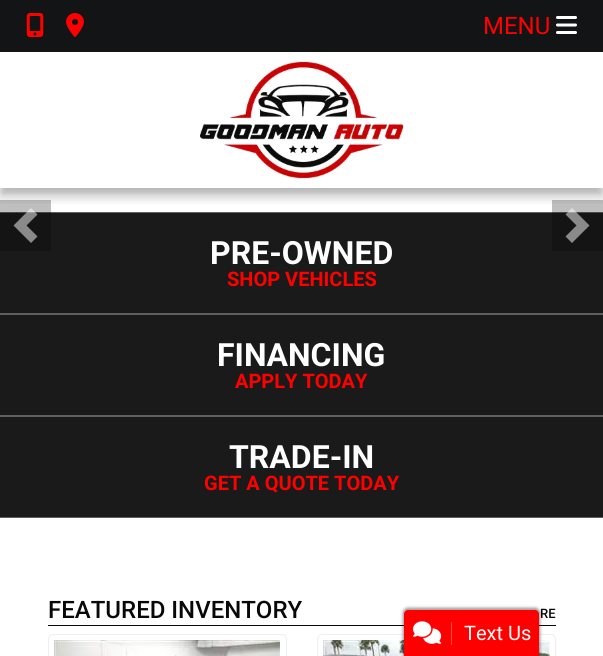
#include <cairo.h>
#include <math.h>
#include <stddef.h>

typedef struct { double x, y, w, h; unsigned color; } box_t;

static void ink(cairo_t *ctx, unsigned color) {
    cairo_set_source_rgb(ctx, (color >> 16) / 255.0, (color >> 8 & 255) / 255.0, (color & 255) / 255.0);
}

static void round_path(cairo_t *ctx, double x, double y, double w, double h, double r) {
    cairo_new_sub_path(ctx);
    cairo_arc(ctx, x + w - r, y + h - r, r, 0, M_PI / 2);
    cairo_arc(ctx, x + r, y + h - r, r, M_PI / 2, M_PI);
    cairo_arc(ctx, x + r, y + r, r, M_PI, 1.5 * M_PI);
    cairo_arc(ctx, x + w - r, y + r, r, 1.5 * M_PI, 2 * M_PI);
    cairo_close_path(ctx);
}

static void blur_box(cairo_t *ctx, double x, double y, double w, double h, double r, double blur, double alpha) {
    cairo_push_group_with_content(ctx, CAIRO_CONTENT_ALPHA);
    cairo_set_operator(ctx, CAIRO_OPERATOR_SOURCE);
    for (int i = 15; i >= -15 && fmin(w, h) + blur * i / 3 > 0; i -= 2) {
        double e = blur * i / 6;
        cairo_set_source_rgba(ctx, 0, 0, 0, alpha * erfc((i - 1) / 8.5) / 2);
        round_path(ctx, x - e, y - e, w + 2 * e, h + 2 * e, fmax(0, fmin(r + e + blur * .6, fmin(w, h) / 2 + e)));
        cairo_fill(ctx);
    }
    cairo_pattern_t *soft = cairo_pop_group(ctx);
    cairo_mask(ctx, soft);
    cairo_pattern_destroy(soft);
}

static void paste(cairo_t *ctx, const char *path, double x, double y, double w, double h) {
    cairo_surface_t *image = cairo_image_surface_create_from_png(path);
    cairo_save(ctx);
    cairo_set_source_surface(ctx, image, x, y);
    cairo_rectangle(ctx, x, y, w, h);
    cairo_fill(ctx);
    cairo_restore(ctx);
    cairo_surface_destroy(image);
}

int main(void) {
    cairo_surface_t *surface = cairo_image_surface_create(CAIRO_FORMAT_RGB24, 603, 656);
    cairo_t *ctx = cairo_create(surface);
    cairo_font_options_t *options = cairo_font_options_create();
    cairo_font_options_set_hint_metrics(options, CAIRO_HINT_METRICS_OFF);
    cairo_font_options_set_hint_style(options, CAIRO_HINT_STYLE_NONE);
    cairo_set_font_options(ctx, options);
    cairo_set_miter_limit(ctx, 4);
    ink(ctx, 0xFFFFFF);
    cairo_paint(ctx);
    ink(ctx, 0xBFBFBF);
    cairo_rectangle(ctx, 552, 200, 51, 12);
    cairo_fill(ctx);
    cairo_rectangle(ctx, 0, 200, 51, 12);
    cairo_fill(ctx);
    cairo_save(ctx);
    cairo_rectangle(ctx, 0, 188, 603, 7);
    cairo_clip(ctx);
    ink(ctx, 0x000000);
    blur_box(ctx, 0, 5, 603, 188, 0, 2.5, 0.1);
    cairo_restore(ctx);
    {
        static const box_t items[] = {
            {0, 213, 603, 100, 0x1A1A1A},
            {0, 213, 51, 38, 0x141414},
            {0, 212, 51, 1, 0x474747},
        };
        for (size_t i = 0; i < sizeof items / sizeof *items; i++) {
            ink(ctx, items[i].color);
            cairo_rectangle(ctx, items[i].x, items[i].y, items[i].w, items[i].h);
            cairo_fill(ctx);
        }
    }
    cairo_set_source_rgba(ctx, 1, 1, 1, 0.5);
    cairo_new_path(ctx);
    cairo_move_to(ctx, 31, 208);
    cairo_line_to(ctx, 13.5, 225.5);
    cairo_line_to(ctx, 31, 243);
    cairo_line_to(ctx, 37.5, 236.5);
    cairo_line_to(ctx, 26.5, 225.5);
    cairo_line_to(ctx, 37.5, 214.5);
    cairo_close_path(ctx);
    cairo_fill(ctx);
    ink(ctx, 0x141414);
    cairo_rectangle(ctx, 552, 213, 51, 38);
    cairo_fill(ctx);
    ink(ctx, 0x474747);
    cairo_rectangle(ctx, 552, 212, 51, 1);
    cairo_fill(ctx);
    cairo_set_source_rgba(ctx, 1, 1, 1, 0.5);
    cairo_new_path(ctx);
    cairo_move_to(ctx, 572, 208);
    cairo_line_to(ctx, 565.5, 214.5);
    cairo_line_to(ctx, 576.5, 225.5);
    cairo_line_to(ctx, 565.5, 236.5);
    cairo_line_to(ctx, 572, 243);
    cairo_line_to(ctx, 589.5, 225.5);
    cairo_close_path(ctx);
    cairo_fill(ctx);
    ink(ctx, 0x5F5F5F);
    cairo_rectangle(ctx, 51, 212, 501, 1);
    cairo_fill(ctx);
    cairo_save(ctx);
    cairo_rectangle(ctx, 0, 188, 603, 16);
    cairo_clip(ctx);
    ink(ctx, 0x000000);
    blur_box(ctx, 0, 10, 603, 188, 0, 5, 0.2);
    cairo_restore(ctx);
    ink(ctx, 0x121416);
    cairo_rectangle(ctx, 0, 0, 603, 52);
    cairo_fill(ctx);
    paste(ctx, "media/1.png", 26, 13, 18, 24);
    paste(ctx, "media/2.png", 66, 13, 18, 24);
    cairo_select_font_face(ctx, "Roboto", CAIRO_FONT_SLANT_NORMAL, CAIRO_FONT_WEIGHT_NORMAL);
    cairo_set_font_size(ctx, 24);
    ink(ctx, 0xFF0000);
    cairo_move_to(ctx, 483, 34);
    cairo_show_text(ctx, "MENU");
    paste(ctx, "media/3.png", 556, 16, 21, 18);
    paste(ctx, "media/4.png", 200, 60, 204, 120);
    ink(ctx, 0x5F5F5F);
    cairo_rectangle(ctx, 0, 313, 603, 2);
    cairo_fill(ctx);
    cairo_select_font_face(ctx, "Roboto", CAIRO_FONT_SLANT_NORMAL, CAIRO_FONT_WEIGHT_BOLD);
    cairo_set_font_size(ctx, 32);
    ink(ctx, 0xFFFFFF);
    cairo_move_to(ctx, 210, 264);
    cairo_show_text(ctx, "PRE-OWNED");
    cairo_set_font_size(ctx, 20);
    ink(ctx, 0xFF0000);
    cairo_move_to(ctx, 227, 286);
    cairo_show_text(ctx, "SHOP VEHICLES");
    ink(ctx, 0x1A1A1A);
    cairo_rectangle(ctx, 0, 315, 603, 100);
    cairo_fill(ctx);
    ink(ctx, 0x5F5F5F);
    cairo_rectangle(ctx, 0, 415, 603, 2);
    cairo_fill(ctx);
    cairo_set_font_size(ctx, 32);
    ink(ctx, 0xFFFFFF);
    cairo_move_to(ctx, 217, 366);
    cairo_show_text(ctx, "FINANCING");
    cairo_set_font_size(ctx, 20);
    ink(ctx, 0xFF0000);
    cairo_move_to(ctx, 235, 388);
    cairo_show_text(ctx, "APPLY TODAY");
    ink(ctx, 0x1A1A1A);
    cairo_rectangle(ctx, 0, 417, 603, 100);
    cairo_fill(ctx);
    ink(ctx, 0x5F5F5F);
    cairo_rectangle(ctx, 0, 517, 603, 1);
    cairo_fill(ctx);
    cairo_set_font_size(ctx, 32);
    ink(ctx, 0xFFFFFF);
    cairo_move_to(ctx, 229, 468);
    cairo_show_text(ctx, "TRADE-IN");
    cairo_set_font_size(ctx, 20);
    ink(ctx, 0xFF0000);
    cairo_move_to(ctx, 204, 490);
    cairo_show_text(ctx, "GET A QUOTE TODAY");
    ink(ctx, 0x080808);
    cairo_rectangle(ctx, 48, 625, 508, 1);
    cairo_fill(ctx);
    cairo_select_font_face(ctx, "Roboto Medium", CAIRO_FONT_SLANT_NORMAL, CAIRO_FONT_WEIGHT_NORMAL);
    cairo_set_font_size(ctx, 24);
    cairo_move_to(ctx, 48, 618);
    cairo_show_text(ctx, "FEATURED INVENTORY");
    cairo_set_font_size(ctx, 13);
    cairo_move_to(ctx, 540, 618);
    cairo_show_text(ctx, "RE");
    round_path(ctx, 48.5, 634.5, 238, 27, 4.5);
    ink(ctx, 0xEFEFEF);
    cairo_set_line_width(ctx, 1);
    cairo_stroke(ctx);
    paste(ctx, "media/5.png", 54, 640, 226, 16);
    round_path(ctx, 317.5, 634.5, 238, 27, 4.5);
    cairo_stroke(ctx);
    paste(ctx, "media/6.png", 323, 640, 227, 16);
    ink(ctx, 0x000000);
    blur_box(ctx, 403, 608, 137, 48, 5, 1, 0.25);
    blur_box(ctx, 402, 607, 139, 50, 6, 1.5, 0.15);
    ink(ctx, 0xFF0000);
    cairo_new_path(ctx);
    cairo_move_to(ctx, 408, 610);
    cairo_line_to(ctx, 535, 610);
    cairo_curve_to(ctx, 537, 610, 539, 612, 539, 614);
    cairo_line_to(ctx, 539, 656);
    cairo_line_to(ctx, 404, 656);
    cairo_line_to(ctx, 404, 614);
    cairo_curve_to(ctx, 404, 612, 406, 610, 408, 610);
    cairo_close_path(ctx);
    cairo_fill(ctx);
    ink(ctx, 0xFF4D4D);
    cairo_rectangle(ctx, 451, 622, 1, 23);
    cairo_fill(ctx);
    paste(ctx, "media/7.png", 413, 621, 29, 23);
    cairo_select_font_face(ctx, "Roboto", CAIRO_FONT_SLANT_NORMAL, CAIRO_FONT_WEIGHT_NORMAL);
    cairo_set_font_size(ctx, 20);
    ink(ctx, 0xFFFFFF);
    cairo_move_to(ctx, 464, 640);
    cairo_show_text(ctx, "Text Us");
    cairo_surface_write_to_png(surface, "image.png");
    cairo_font_options_destroy(options);
    cairo_destroy(ctx);
    cairo_surface_destroy(surface);
    return 0;
}
